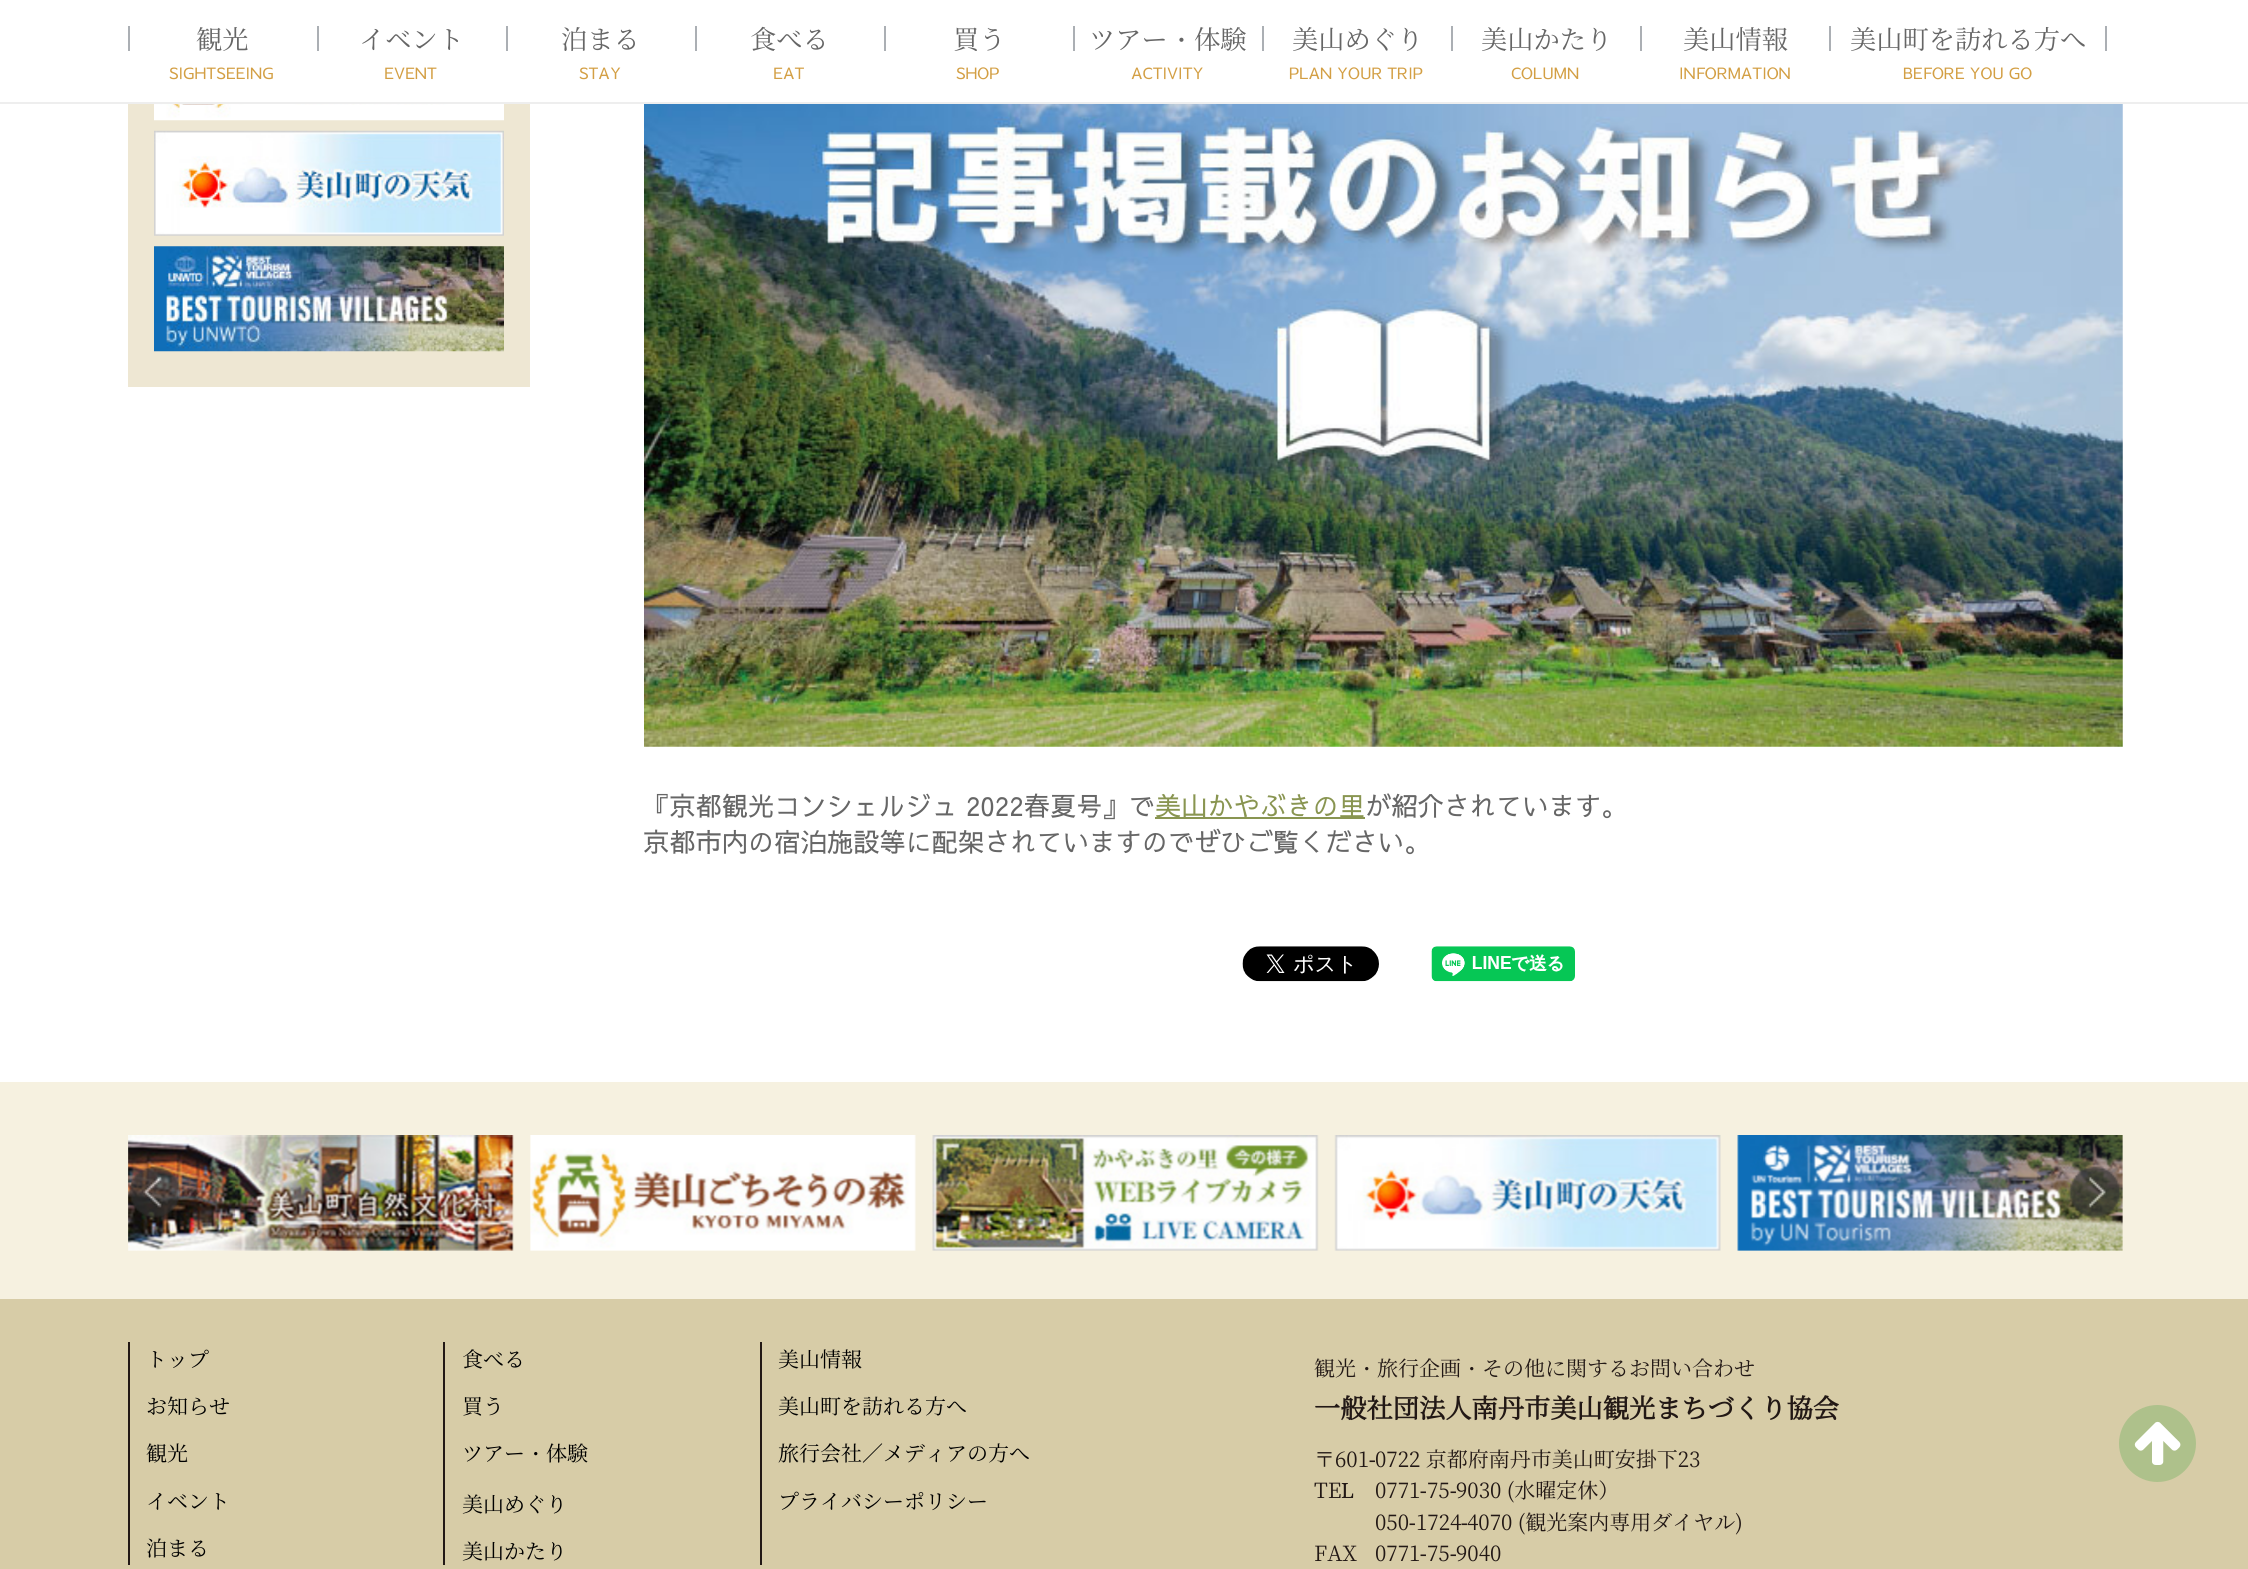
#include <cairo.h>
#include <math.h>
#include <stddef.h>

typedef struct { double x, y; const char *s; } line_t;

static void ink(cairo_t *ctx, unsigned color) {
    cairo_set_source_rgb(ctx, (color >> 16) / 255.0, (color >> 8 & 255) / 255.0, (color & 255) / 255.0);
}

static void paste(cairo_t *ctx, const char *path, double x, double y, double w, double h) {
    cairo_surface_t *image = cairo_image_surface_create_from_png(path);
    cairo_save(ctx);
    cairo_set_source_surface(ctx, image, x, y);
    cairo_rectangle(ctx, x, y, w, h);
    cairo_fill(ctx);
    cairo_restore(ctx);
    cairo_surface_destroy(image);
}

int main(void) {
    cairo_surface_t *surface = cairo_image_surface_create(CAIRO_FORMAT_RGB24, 2248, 1569);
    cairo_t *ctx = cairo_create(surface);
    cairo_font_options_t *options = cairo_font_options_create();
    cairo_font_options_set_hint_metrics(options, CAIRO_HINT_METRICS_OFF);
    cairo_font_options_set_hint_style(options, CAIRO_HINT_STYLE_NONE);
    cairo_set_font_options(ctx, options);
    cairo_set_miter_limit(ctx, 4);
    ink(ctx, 0xFFFFFF);
    cairo_paint(ctx);
    ink(ctx, 0xEEEEEE);
    cairo_rectangle(ctx, 0, 102, 2248, 2);
    cairo_fill(ctx);
    ink(ctx, 0xABAFB4);
    cairo_rectangle(ctx, 128, 26, 2, 25);
    cairo_fill(ctx);
    cairo_select_font_face(ctx, "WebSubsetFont", CAIRO_FONT_SLANT_NORMAL, CAIRO_FONT_WEIGHT_NORMAL);
    cairo_set_font_size(ctx, 26.25);
    ink(ctx, 0x666666);
    cairo_move_to(ctx, 196, 49);
    cairo_show_text(ctx, "観光");
    cairo_select_font_face(ctx, "Sawarabi Gothic", CAIRO_FONT_SLANT_NORMAL, CAIRO_FONT_WEIGHT_NORMAL);
    cairo_set_font_size(ctx, 15.75);
    ink(ctx, 0xD39F44);
    cairo_move_to(ctx, 169, 79);
    cairo_show_text(ctx, "SIGHTSEEING");
    ink(ctx, 0xABAFB4);
    cairo_rectangle(ctx, 317, 26, 2, 25);
    cairo_fill(ctx);
    cairo_select_font_face(ctx, "WebSubsetFont", CAIRO_FONT_SLANT_NORMAL, CAIRO_FONT_WEIGHT_NORMAL);
    cairo_set_font_size(ctx, 26.25);
    ink(ctx, 0x666666);
    cairo_move_to(ctx, 359, 49);
    cairo_show_text(ctx, "イベント");
    cairo_select_font_face(ctx, "Sawarabi Gothic", CAIRO_FONT_SLANT_NORMAL, CAIRO_FONT_WEIGHT_NORMAL);
    cairo_set_font_size(ctx, 15.75);
    ink(ctx, 0xD39F44);
    cairo_move_to(ctx, 384, 79);
    cairo_show_text(ctx, "EVENT");
    ink(ctx, 0xABAFB4);
    cairo_rectangle(ctx, 506, 26, 2, 25);
    cairo_fill(ctx);
    cairo_select_font_face(ctx, "WebSubsetFont", CAIRO_FONT_SLANT_NORMAL, CAIRO_FONT_WEIGHT_NORMAL);
    cairo_set_font_size(ctx, 26.25);
    ink(ctx, 0x666666);
    cairo_move_to(ctx, 561, 49);
    cairo_show_text(ctx, "泊まる");
    cairo_select_font_face(ctx, "Sawarabi Gothic", CAIRO_FONT_SLANT_NORMAL, CAIRO_FONT_WEIGHT_NORMAL);
    cairo_set_font_size(ctx, 15.75);
    ink(ctx, 0xD39F44);
    cairo_move_to(ctx, 579, 79);
    cairo_show_text(ctx, "STAY");
    ink(ctx, 0xABAFB4);
    cairo_rectangle(ctx, 695, 26, 2, 25);
    cairo_fill(ctx);
    cairo_select_font_face(ctx, "WebSubsetFont", CAIRO_FONT_SLANT_NORMAL, CAIRO_FONT_WEIGHT_NORMAL);
    cairo_set_font_size(ctx, 26.25);
    ink(ctx, 0x666666);
    cairo_move_to(ctx, 750, 49);
    cairo_show_text(ctx, "食べる");
    cairo_select_font_face(ctx, "Sawarabi Gothic", CAIRO_FONT_SLANT_NORMAL, CAIRO_FONT_WEIGHT_NORMAL);
    cairo_set_font_size(ctx, 15.75);
    ink(ctx, 0xD39F44);
    cairo_move_to(ctx, 773, 79);
    cairo_show_text(ctx, "EAT");
    ink(ctx, 0xABAFB4);
    cairo_rectangle(ctx, 884, 26, 2, 25);
    cairo_fill(ctx);
    cairo_select_font_face(ctx, "WebSubsetFont", CAIRO_FONT_SLANT_NORMAL, CAIRO_FONT_WEIGHT_NORMAL);
    cairo_set_font_size(ctx, 26.25);
    ink(ctx, 0x666666);
    cairo_move_to(ctx, 953, 49);
    cairo_show_text(ctx, "買う");
    cairo_select_font_face(ctx, "Sawarabi Gothic", CAIRO_FONT_SLANT_NORMAL, CAIRO_FONT_WEIGHT_NORMAL);
    cairo_set_font_size(ctx, 15.75);
    ink(ctx, 0xD39F44);
    cairo_move_to(ctx, 956, 79);
    cairo_show_text(ctx, "SHOP");
    ink(ctx, 0xABAFB4);
    cairo_rectangle(ctx, 1073, 26, 2, 25);
    cairo_fill(ctx);
    cairo_select_font_face(ctx, "WebSubsetFont", CAIRO_FONT_SLANT_NORMAL, CAIRO_FONT_WEIGHT_NORMAL);
    cairo_set_font_size(ctx, 26.25);
    ink(ctx, 0x666666);
    cairo_move_to(ctx, 1089, 49);
    cairo_show_text(ctx, "ツアー");
    cairo_select_font_face(ctx, "WenQuanYi Zen Hei Medium", CAIRO_FONT_SLANT_NORMAL, CAIRO_FONT_WEIGHT_NORMAL);
    cairo_move_to(ctx, 1168, 49);
    cairo_show_text(ctx, "・");
    cairo_select_font_face(ctx, "WebSubsetFont", CAIRO_FONT_SLANT_NORMAL, CAIRO_FONT_WEIGHT_NORMAL);
    cairo_move_to(ctx, 1194, 49);
    cairo_show_text(ctx, "体験");
    cairo_select_font_face(ctx, "Sawarabi Gothic", CAIRO_FONT_SLANT_NORMAL, CAIRO_FONT_WEIGHT_NORMAL);
    cairo_set_font_size(ctx, 15.75);
    ink(ctx, 0xD39F44);
    cairo_move_to(ctx, 1131, 79);
    cairo_show_text(ctx, "ACTIVITY");
    ink(ctx, 0xABAFB4);
    cairo_rectangle(ctx, 1262, 26, 2, 25);
    cairo_fill(ctx);
    cairo_select_font_face(ctx, "WebSubsetFont", CAIRO_FONT_SLANT_NORMAL, CAIRO_FONT_WEIGHT_NORMAL);
    cairo_set_font_size(ctx, 26.25);
    ink(ctx, 0x666666);
    cairo_move_to(ctx, 1292, 49);
    cairo_show_text(ctx, "美山めぐり");
    cairo_select_font_face(ctx, "Sawarabi Gothic", CAIRO_FONT_SLANT_NORMAL, CAIRO_FONT_WEIGHT_NORMAL);
    cairo_set_font_size(ctx, 15.75);
    ink(ctx, 0xD39F44);
    cairo_move_to(ctx, 1289, 79);
    cairo_show_text(ctx, "PLAN YOUR TRIP");
    ink(ctx, 0xABAFB4);
    cairo_rectangle(ctx, 1451, 26, 2, 25);
    cairo_fill(ctx);
    cairo_select_font_face(ctx, "WebSubsetFont", CAIRO_FONT_SLANT_NORMAL, CAIRO_FONT_WEIGHT_NORMAL);
    cairo_set_font_size(ctx, 26.25);
    ink(ctx, 0x666666);
    cairo_move_to(ctx, 1481, 49);
    cairo_show_text(ctx, "美山かたり");
    cairo_select_font_face(ctx, "Sawarabi Gothic", CAIRO_FONT_SLANT_NORMAL, CAIRO_FONT_WEIGHT_NORMAL);
    cairo_set_font_size(ctx, 15.75);
    ink(ctx, 0xD39F44);
    cairo_move_to(ctx, 1511, 79);
    cairo_show_text(ctx, "COLUMN");
    ink(ctx, 0xABAFB4);
    cairo_rectangle(ctx, 1640, 26, 2, 25);
    cairo_fill(ctx);
    cairo_select_font_face(ctx, "WebSubsetFont", CAIRO_FONT_SLANT_NORMAL, CAIRO_FONT_WEIGHT_NORMAL);
    cairo_set_font_size(ctx, 26.25);
    ink(ctx, 0x666666);
    cairo_move_to(ctx, 1683, 49);
    cairo_show_text(ctx, "美山情報");
    cairo_select_font_face(ctx, "Sawarabi Gothic", CAIRO_FONT_SLANT_NORMAL, CAIRO_FONT_WEIGHT_NORMAL);
    cairo_set_font_size(ctx, 15.75);
    ink(ctx, 0xD39F44);
    cairo_move_to(ctx, 1679, 79);
    cairo_show_text(ctx, "INFORMATION");
    ink(ctx, 0xABAFB4);
    cairo_rectangle(ctx, 2105, 26, 2, 25);
    cairo_fill(ctx);
    cairo_rectangle(ctx, 1829, 26, 2, 25);
    cairo_fill(ctx);
    cairo_select_font_face(ctx, "WebSubsetFont", CAIRO_FONT_SLANT_NORMAL, CAIRO_FONT_WEIGHT_NORMAL);
    cairo_set_font_size(ctx, 26.25);
    ink(ctx, 0x666666);
    cairo_move_to(ctx, 1850, 49);
    cairo_show_text(ctx, "美山町を訪れる方へ");
    cairo_select_font_face(ctx, "Sawarabi Gothic", CAIRO_FONT_SLANT_NORMAL, CAIRO_FONT_WEIGHT_NORMAL);
    cairo_set_font_size(ctx, 15.75);
    ink(ctx, 0xD39F44);
    cairo_move_to(ctx, 1903, 79);
    cairo_show_text(ctx, "BEFORE YOU GO");
    ink(ctx, 0xEEE7D3);
    cairo_rectangle(ctx, 128, 104, 402, 283);
    cairo_fill(ctx);
    paste(ctx, "media/1.png", 154, 104, 350, 17);
    paste(ctx, "media/2.png", 154, 130, 350, 106);
    paste(ctx, "media/3.png", 154, 246, 350, 106);
    paste(ctx, "media/4.png", 644, 104, 1479, 643);
    cairo_set_font_size(ctx, 26.25);
    ink(ctx, 0x666666);
    cairo_move_to(ctx, 643, 816);
    cairo_show_text(ctx, "『京都観光コンシェルジュ 2022春夏号』で");
    ink(ctx, 0x899551);
    cairo_rectangle(ctx, 1155, 817, 210, 2);
    cairo_fill(ctx);
    cairo_move_to(ctx, 1155, 816);
    cairo_show_text(ctx, "美山かやぶきの里");
    ink(ctx, 0x666666);
    cairo_move_to(ctx, 1365, 816);
    cairo_show_text(ctx, "が紹介されています。");
    cairo_move_to(ctx, 643, 852);
    cairo_show_text(ctx, "京都市内の宿泊施設等に配架されていますのでぜひご覧ください。");
    paste(ctx, "media/5.png", 1242, 946, 137, 36);
    paste(ctx, "media/6.png", 1431, 946, 144, 36);
    ink(ctx, 0xF6F1E0);
    cairo_rectangle(ctx, 0, 1082, 2248, 217);
    cairo_fill(ctx);
    paste(ctx, "media/7.png", 128, 1135, 386, 116);
    paste(ctx, "media/8.png", 530, 1135, 386, 116);
    paste(ctx, "media/9.png", 932, 1135, 387, 116);
    paste(ctx, "media/10.png", 1334, 1135, 387, 116);
    paste(ctx, "media/11.png", 1737, 1135, 386, 116);
    paste(ctx, "media/12.png", 129, 1166, 52, 52);
    paste(ctx, "media/13.png", 2068, 1166, 52, 52);
    ink(ctx, 0xD7CCA7);
    cairo_rectangle(ctx, 0, 1299, 2248, 270);
    cairo_fill(ctx);
    ink(ctx, 0x221815);
    cairo_rectangle(ctx, 128, 1342, 2, 223);
    cairo_fill(ctx);
    cairo_select_font_face(ctx, "WebSubsetFont", CAIRO_FONT_SLANT_NORMAL, CAIRO_FONT_WEIGHT_NORMAL);
    cairo_set_font_size(ctx, 21);
    ink(ctx, 0x000000);
    {
        static const line_t items[] = {
            {146, 1367, "トップ"},
            {146, 1414, "お知らせ"},
            {146, 1461, "観光"},
            {146, 1509, "イベント"},
            {146, 1556, "泊まる"},
        };
        for (size_t i = 0; i < sizeof items / sizeof *items; i++) {
            cairo_move_to(ctx, items[i].x, items[i].y);
            cairo_show_text(ctx, items[i].s);
        }
    }
    ink(ctx, 0x221815);
    cairo_rectangle(ctx, 443, 1342, 2, 223);
    cairo_fill(ctx);
    ink(ctx, 0x000000);
    {
        static const line_t items[] = {
            {462, 1367, "食べる"},
            {462, 1414, "買う"},
            {462, 1461, "ツアー"},
        };
        for (size_t i = 0; i < sizeof items / sizeof *items; i++) {
            cairo_move_to(ctx, items[i].x, items[i].y);
            cairo_show_text(ctx, items[i].s);
        }
    }
    cairo_select_font_face(ctx, "WenQuanYi Zen Hei Medium", CAIRO_FONT_SLANT_NORMAL, CAIRO_FONT_WEIGHT_NORMAL);
    cairo_move_to(ctx, 525, 1461);
    cairo_show_text(ctx, "・");
    cairo_select_font_face(ctx, "WebSubsetFont", CAIRO_FONT_SLANT_NORMAL, CAIRO_FONT_WEIGHT_NORMAL);
    {
        static const line_t items[] = {
            {546, 1461, "体験"},
            {462, 1512, "美山めぐり"},
            {462, 1559, "美山かたり"},
        };
        for (size_t i = 0; i < sizeof items / sizeof *items; i++) {
            cairo_move_to(ctx, items[i].x, items[i].y);
            cairo_show_text(ctx, items[i].s);
        }
    }
    ink(ctx, 0x221815);
    cairo_rectangle(ctx, 760, 1342, 2, 223);
    cairo_fill(ctx);
    ink(ctx, 0x000000);
    {
        static const line_t items[] = {
            {778, 1367, "美山情報"},
            {778, 1414, "美山町を訪れる方へ"},
            {778, 1461, "旅行会社／メディアの方へ"},
            {778, 1509, "プライバシーポリシー"},
        };
        for (size_t i = 0; i < sizeof items / sizeof *items; i++) {
            cairo_move_to(ctx, items[i].x, items[i].y);
            cairo_show_text(ctx, items[i].s);
        }
    }
    ink(ctx, 0x221815);
    cairo_move_to(ctx, 1314, 1376);
    cairo_show_text(ctx, "観光");
    cairo_select_font_face(ctx, "WenQuanYi Zen Hei Medium", CAIRO_FONT_SLANT_NORMAL, CAIRO_FONT_WEIGHT_NORMAL);
    cairo_move_to(ctx, 1356, 1376);
    cairo_show_text(ctx, "・");
    cairo_select_font_face(ctx, "WebSubsetFont", CAIRO_FONT_SLANT_NORMAL, CAIRO_FONT_WEIGHT_NORMAL);
    cairo_move_to(ctx, 1377, 1376);
    cairo_show_text(ctx, "旅行企画");
    cairo_select_font_face(ctx, "WenQuanYi Zen Hei Medium", CAIRO_FONT_SLANT_NORMAL, CAIRO_FONT_WEIGHT_NORMAL);
    cairo_move_to(ctx, 1461, 1376);
    cairo_show_text(ctx, "・");
    cairo_select_font_face(ctx, "WebSubsetFont", CAIRO_FONT_SLANT_NORMAL, CAIRO_FONT_WEIGHT_NORMAL);
    cairo_move_to(ctx, 1482, 1376);
    cairo_show_text(ctx, "その他に関するお問い合わせ");
    cairo_select_font_face(ctx, "WebSubsetFont", CAIRO_FONT_SLANT_NORMAL, CAIRO_FONT_WEIGHT_BOLD);
    cairo_set_font_size(ctx, 26.25);
    cairo_move_to(ctx, 1314, 1418);
    cairo_show_text(ctx, "一般社団法人南丹市美山観光まちづくり協会");
    cairo_select_font_face(ctx, "WebSubsetFont", CAIRO_FONT_SLANT_NORMAL, CAIRO_FONT_WEIGHT_NORMAL);
    cairo_set_font_size(ctx, 21);
    cairo_move_to(ctx, 1314, 1467);
    cairo_show_text(ctx, "〒601");
    cairo_select_font_face(ctx, "Noto Serif", CAIRO_FONT_SLANT_NORMAL, CAIRO_FONT_WEIGHT_NORMAL);
    cairo_move_to(ctx, 1369, 1467);
    cairo_show_text(ctx, "-");
    cairo_select_font_face(ctx, "WebSubsetFont", CAIRO_FONT_SLANT_NORMAL, CAIRO_FONT_WEIGHT_NORMAL);
    cairo_move_to(ctx, 1375, 1467);
    cairo_show_text(ctx, "0722 京都府南丹市美山町安掛下23");
    cairo_move_to(ctx, 1314, 1498);
    cairo_show_text(ctx, "TE");
    cairo_select_font_face(ctx, "Noto Serif", CAIRO_FONT_SLANT_NORMAL, CAIRO_FONT_WEIGHT_NORMAL);
    cairo_move_to(ctx, 1341, 1498);
    cairo_show_text(ctx, "L");
    cairo_select_font_face(ctx, "WebSubsetFont", CAIRO_FONT_SLANT_NORMAL, CAIRO_FONT_WEIGHT_NORMAL);
    cairo_move_to(ctx, 1375, 1498);
    cairo_show_text(ctx, "0771");
    cairo_select_font_face(ctx, "Noto Serif", CAIRO_FONT_SLANT_NORMAL, CAIRO_FONT_WEIGHT_NORMAL);
    cairo_move_to(ctx, 1420, 1498);
    cairo_show_text(ctx, "-");
    cairo_select_font_face(ctx, "WebSubsetFont", CAIRO_FONT_SLANT_NORMAL, CAIRO_FONT_WEIGHT_NORMAL);
    cairo_move_to(ctx, 1427, 1498);
    cairo_show_text(ctx, "75");
    cairo_select_font_face(ctx, "Noto Serif", CAIRO_FONT_SLANT_NORMAL, CAIRO_FONT_WEIGHT_NORMAL);
    cairo_move_to(ctx, 1450, 1498);
    cairo_show_text(ctx, "-");
    cairo_select_font_face(ctx, "WebSubsetFont", CAIRO_FONT_SLANT_NORMAL, CAIRO_FONT_WEIGHT_NORMAL);
    cairo_move_to(ctx, 1456, 1498);
    cairo_show_text(ctx, "9030 (水曜定休）");
    cairo_move_to(ctx, 1375, 1530);
    cairo_show_text(ctx, "050");
    cairo_select_font_face(ctx, "Noto Serif", CAIRO_FONT_SLANT_NORMAL, CAIRO_FONT_WEIGHT_NORMAL);
    cairo_move_to(ctx, 1409, 1530);
    cairo_show_text(ctx, "-");
    cairo_select_font_face(ctx, "WebSubsetFont", CAIRO_FONT_SLANT_NORMAL, CAIRO_FONT_WEIGHT_NORMAL);
    cairo_move_to(ctx, 1416, 1530);
    cairo_show_text(ctx, "1724");
    cairo_select_font_face(ctx, "Noto Serif", CAIRO_FONT_SLANT_NORMAL, CAIRO_FONT_WEIGHT_NORMAL);
    cairo_move_to(ctx, 1461, 1530);
    cairo_show_text(ctx, "-");
    cairo_select_font_face(ctx, "WebSubsetFont", CAIRO_FONT_SLANT_NORMAL, CAIRO_FONT_WEIGHT_NORMAL);
    {
        static const line_t items[] = {
            {1467, 1530, "4070 (観光案内専用ダイヤル)"},
            {1314, 1561, "FAX"},
            {1375, 1561, "0771"},
        };
        for (size_t i = 0; i < sizeof items / sizeof *items; i++) {
            cairo_move_to(ctx, items[i].x, items[i].y);
            cairo_show_text(ctx, items[i].s);
        }
    }
    cairo_select_font_face(ctx, "Noto Serif", CAIRO_FONT_SLANT_NORMAL, CAIRO_FONT_WEIGHT_NORMAL);
    cairo_move_to(ctx, 1420, 1561);
    cairo_show_text(ctx, "-");
    cairo_select_font_face(ctx, "WebSubsetFont", CAIRO_FONT_SLANT_NORMAL, CAIRO_FONT_WEIGHT_NORMAL);
    cairo_move_to(ctx, 1427, 1561);
    cairo_show_text(ctx, "75");
    cairo_select_font_face(ctx, "Noto Serif", CAIRO_FONT_SLANT_NORMAL, CAIRO_FONT_WEIGHT_NORMAL);
    cairo_move_to(ctx, 1450, 1561);
    cairo_show_text(ctx, "-");
    cairo_select_font_face(ctx, "WebSubsetFont", CAIRO_FONT_SLANT_NORMAL, CAIRO_FONT_WEIGHT_NORMAL);
    cairo_move_to(ctx, 1456, 1561);
    cairo_show_text(ctx, "9040");
    ink(ctx, 0xAEC18B);
    cairo_new_path(ctx);
    cairo_arc(ctx, 2157.5, 1443.5, 38.5, 0, 2 * M_PI);
    cairo_fill(ctx);
    paste(ctx, "media/14.png", 2134, 1421, 47, 44);
    cairo_surface_write_to_png(surface, "image.png");
    cairo_font_options_destroy(options);
    cairo_destroy(ctx);
    cairo_surface_destroy(surface);
    return 0;
}
